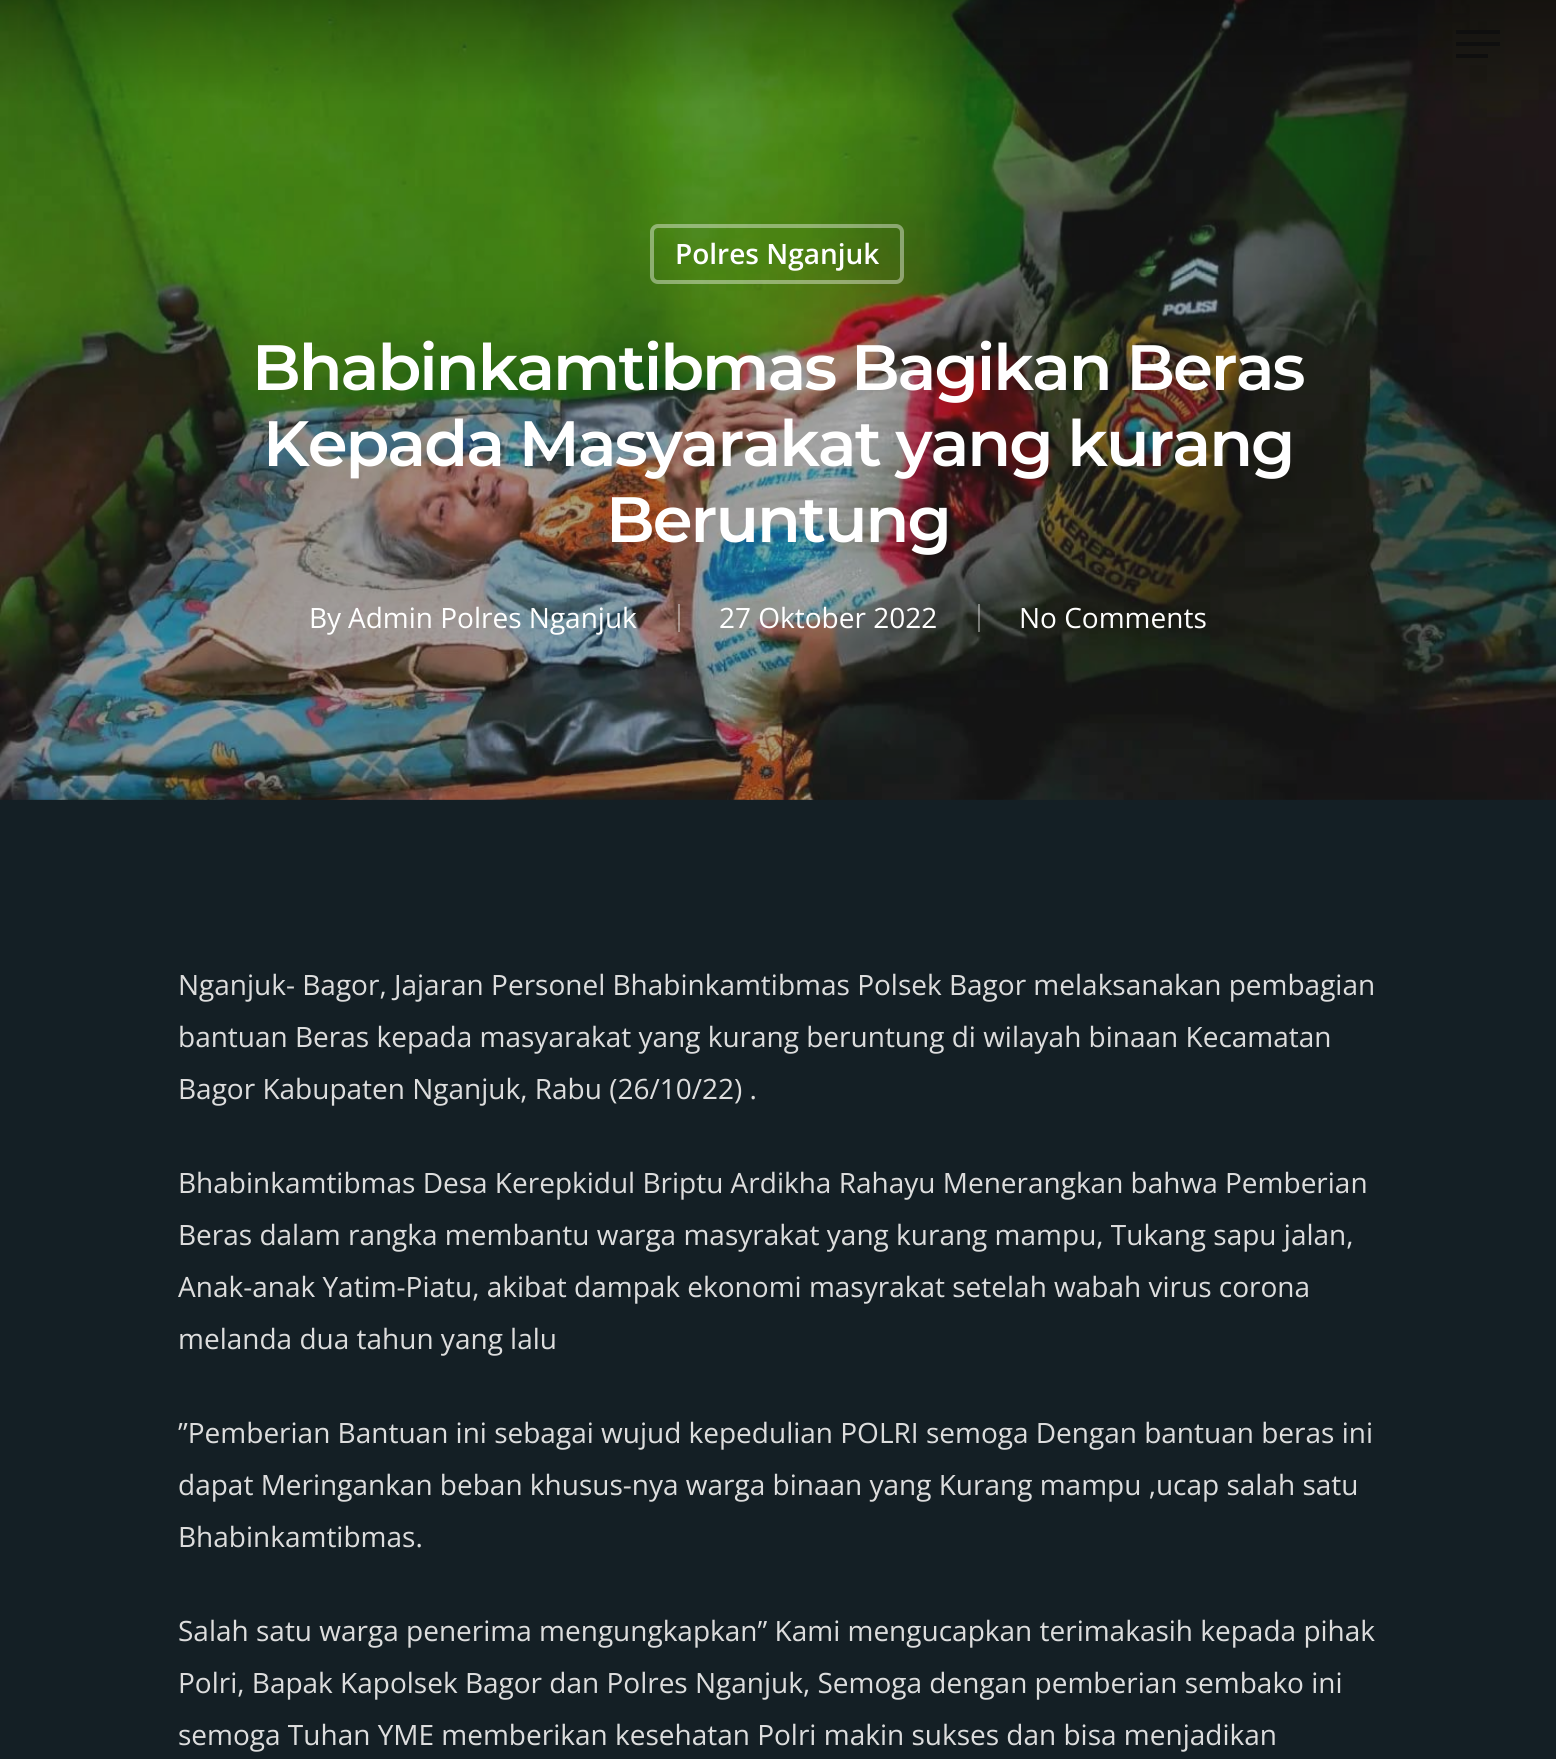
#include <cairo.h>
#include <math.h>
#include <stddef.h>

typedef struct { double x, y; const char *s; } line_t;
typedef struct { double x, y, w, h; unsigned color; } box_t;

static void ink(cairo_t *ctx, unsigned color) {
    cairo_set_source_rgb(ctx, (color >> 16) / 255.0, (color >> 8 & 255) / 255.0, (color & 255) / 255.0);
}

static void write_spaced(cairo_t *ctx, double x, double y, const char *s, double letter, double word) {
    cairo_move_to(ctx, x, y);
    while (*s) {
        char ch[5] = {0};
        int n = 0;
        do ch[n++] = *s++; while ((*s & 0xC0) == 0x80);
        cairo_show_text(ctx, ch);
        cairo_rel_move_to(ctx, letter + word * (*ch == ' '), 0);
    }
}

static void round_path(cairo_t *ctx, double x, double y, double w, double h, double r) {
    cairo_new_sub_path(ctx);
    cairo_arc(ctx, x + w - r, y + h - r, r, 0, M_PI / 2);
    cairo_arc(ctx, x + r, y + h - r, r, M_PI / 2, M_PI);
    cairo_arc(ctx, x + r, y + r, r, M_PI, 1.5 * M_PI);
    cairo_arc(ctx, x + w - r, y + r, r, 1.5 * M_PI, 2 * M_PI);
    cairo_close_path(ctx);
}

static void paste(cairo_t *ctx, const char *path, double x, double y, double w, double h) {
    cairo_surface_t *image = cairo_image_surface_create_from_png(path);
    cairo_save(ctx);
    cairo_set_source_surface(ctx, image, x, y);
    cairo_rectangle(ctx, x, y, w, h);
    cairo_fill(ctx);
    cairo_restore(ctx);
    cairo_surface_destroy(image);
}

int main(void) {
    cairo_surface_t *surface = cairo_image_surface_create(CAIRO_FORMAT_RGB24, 1556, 1759);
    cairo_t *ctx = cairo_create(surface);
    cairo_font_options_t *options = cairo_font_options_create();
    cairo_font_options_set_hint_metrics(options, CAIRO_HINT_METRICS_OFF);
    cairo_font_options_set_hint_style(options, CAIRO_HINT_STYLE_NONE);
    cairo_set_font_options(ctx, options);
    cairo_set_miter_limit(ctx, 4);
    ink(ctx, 0x141F25);
    cairo_paint(ctx);
    paste(ctx, "media/1.png", 0, 0, 1556, 800);
    {
        static const box_t items[] = {
            {1456, 30, 44, 4, 0x0F0F0F},
            {1456, 54, 32, 4, 0x0F0F0F},
            {1456, 42, 44, 4, 0x0F0F0F},
        };
        for (size_t i = 0; i < sizeof items / sizeof *items; i++) {
            ink(ctx, items[i].color);
            cairo_rectangle(ctx, items[i].x, items[i].y, items[i].w, items[i].h);
            cairo_fill(ctx);
        }
    }
    round_path(ctx, 652, 226, 250, 56, 6);
    cairo_set_source_rgba(ctx, 1, 1, 1, 0.4);
    cairo_set_line_width(ctx, 4);
    cairo_stroke(ctx);
    cairo_select_font_face(ctx, "Open Sans SemiBold", CAIRO_FONT_SLANT_NORMAL, CAIRO_FONT_WEIGHT_NORMAL);
    cairo_set_font_size(ctx, 28);
    ink(ctx, 0xFFFFFF);
    cairo_move_to(ctx, 675, 264);
    cairo_show_text(ctx, "Polres Nganjuk");
    cairo_select_font_face(ctx, "Montserrat Thin", CAIRO_FONT_SLANT_NORMAL, CAIRO_FONT_WEIGHT_NORMAL);
    cairo_set_font_size(ctx, 64);
    {
        static const line_t items[] = {
            {252, 390, "Bhabinkamtibmas Bagikan Beras"},
            {263, 466, "Kepada Masyarakat yang kurang"},
            {606, 542, "Beruntung"},
        };
        for (size_t i = 0; i < sizeof items / sizeof *items; i++) {
            write_spaced(ctx, items[i].x, items[i].y, items[i].s, -2, 0);
        }
    }
    cairo_select_font_face(ctx, "Open Sans", CAIRO_FONT_SLANT_NORMAL, CAIRO_FONT_WEIGHT_NORMAL);
    cairo_set_font_size(ctx, 28);
    cairo_move_to(ctx, 309, 628);
    cairo_show_text(ctx, "By");
    cairo_move_to(ctx, 348, 628);
    cairo_show_text(ctx, "Admin Polres Nganjuk");
    cairo_set_source_rgba(ctx, 1, 1, 1, 0.4);
    cairo_rectangle(ctx, 678, 604, 2, 28);
    cairo_fill(ctx);
    ink(ctx, 0xFFFFFF);
    cairo_move_to(ctx, 719, 628);
    cairo_show_text(ctx, "27 Oktober 2022");
    cairo_set_source_rgba(ctx, 1, 1, 1, 0.4);
    cairo_rectangle(ctx, 978, 604, 2, 28);
    cairo_fill(ctx);
    ink(ctx, 0xFFFFFF);
    cairo_move_to(ctx, 1019, 628);
    cairo_show_text(ctx, "No Comments");
    ink(ctx, 0xDDDDDD);
    {
        static const line_t items[] = {
            {178, 995, "Nganjuk- Bagor, Jajaran Personel Bhabinkamtibmas Polsek Bagor melaksanakan pembagian"},
            {178, 1047, "bantuan Beras kepada masyarakat yang kurang beruntung di wilayah binaan Kecamatan"},
            {178, 1099, "Bagor Kabupaten Nganjuk, Rabu (26/10/22) ."},
            {178, 1193, "Bhabinkamtibmas Desa Kerepkidul Briptu Ardikha Rahayu Menerangkan bahwa Pemberian"},
            {178, 1245, "Beras dalam rangka membantu warga masyrakat yang kurang mampu, Tukang sapu jalan,"},
            {178, 1297, "Anak-anak Yatim-Piatu, akibat dampak ekonomi masyrakat setelah wabah virus corona"},
            {178, 1349, "melanda dua tahun yang lalu"},
            {178, 1443, "”Pemberian Bantuan ini sebagai wujud kepedulian POLRI semoga Dengan bantuan beras ini"},
            {178, 1495, "dapat Meringankan beban khusus-nya warga binaan yang Kurang mampu ,ucap salah satu"},
            {178, 1547, "Bhabinkamtibmas."},
            {178, 1641, "Salah satu warga penerima mengungkapkan” Kami mengucapkan terimakasih kepada pihak"},
            {178, 1693, "Polri, Bapak Kapolsek Bagor dan Polres Nganjuk, Semoga dengan pemberian sembako ini"},
            {178, 1745, "semoga Tuhan YME memberikan kesehatan Polri makin sukses dan bisa menjadikan"},
        };
        for (size_t i = 0; i < sizeof items / sizeof *items; i++) {
            cairo_move_to(ctx, items[i].x, items[i].y);
            cairo_show_text(ctx, items[i].s);
        }
    }
    cairo_surface_write_to_png(surface, "image.png");
    cairo_font_options_destroy(options);
    cairo_destroy(ctx);
    cairo_surface_destroy(surface);
    return 0;
}
